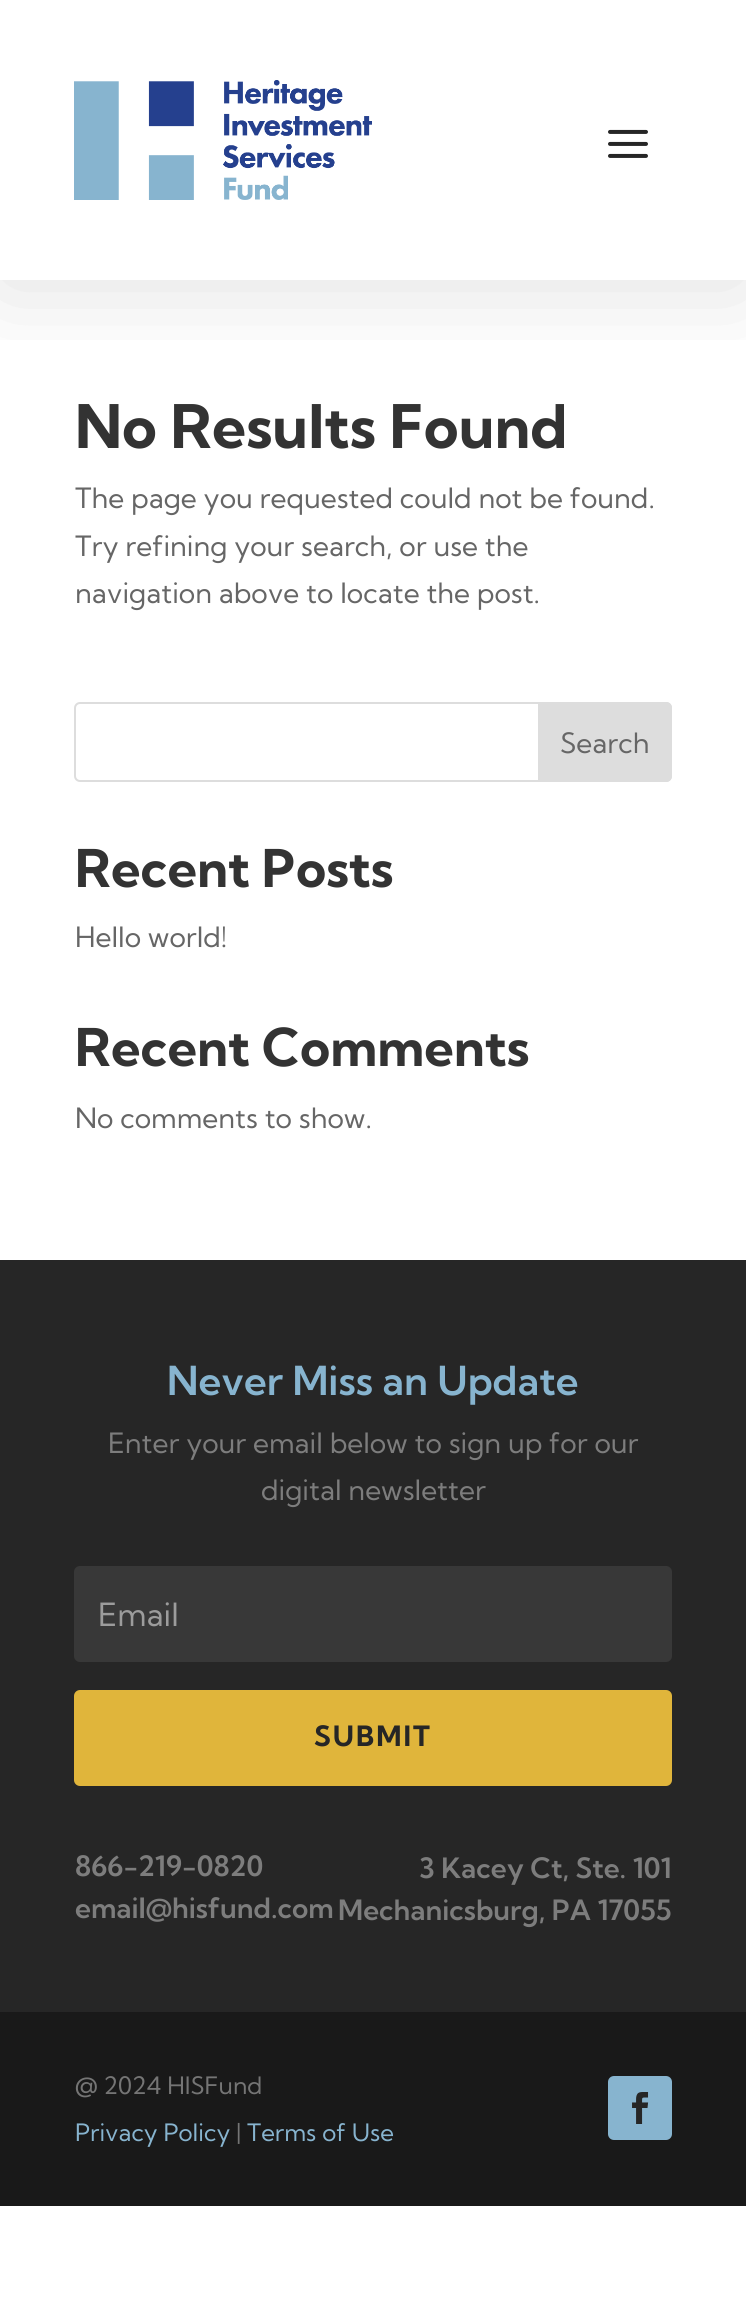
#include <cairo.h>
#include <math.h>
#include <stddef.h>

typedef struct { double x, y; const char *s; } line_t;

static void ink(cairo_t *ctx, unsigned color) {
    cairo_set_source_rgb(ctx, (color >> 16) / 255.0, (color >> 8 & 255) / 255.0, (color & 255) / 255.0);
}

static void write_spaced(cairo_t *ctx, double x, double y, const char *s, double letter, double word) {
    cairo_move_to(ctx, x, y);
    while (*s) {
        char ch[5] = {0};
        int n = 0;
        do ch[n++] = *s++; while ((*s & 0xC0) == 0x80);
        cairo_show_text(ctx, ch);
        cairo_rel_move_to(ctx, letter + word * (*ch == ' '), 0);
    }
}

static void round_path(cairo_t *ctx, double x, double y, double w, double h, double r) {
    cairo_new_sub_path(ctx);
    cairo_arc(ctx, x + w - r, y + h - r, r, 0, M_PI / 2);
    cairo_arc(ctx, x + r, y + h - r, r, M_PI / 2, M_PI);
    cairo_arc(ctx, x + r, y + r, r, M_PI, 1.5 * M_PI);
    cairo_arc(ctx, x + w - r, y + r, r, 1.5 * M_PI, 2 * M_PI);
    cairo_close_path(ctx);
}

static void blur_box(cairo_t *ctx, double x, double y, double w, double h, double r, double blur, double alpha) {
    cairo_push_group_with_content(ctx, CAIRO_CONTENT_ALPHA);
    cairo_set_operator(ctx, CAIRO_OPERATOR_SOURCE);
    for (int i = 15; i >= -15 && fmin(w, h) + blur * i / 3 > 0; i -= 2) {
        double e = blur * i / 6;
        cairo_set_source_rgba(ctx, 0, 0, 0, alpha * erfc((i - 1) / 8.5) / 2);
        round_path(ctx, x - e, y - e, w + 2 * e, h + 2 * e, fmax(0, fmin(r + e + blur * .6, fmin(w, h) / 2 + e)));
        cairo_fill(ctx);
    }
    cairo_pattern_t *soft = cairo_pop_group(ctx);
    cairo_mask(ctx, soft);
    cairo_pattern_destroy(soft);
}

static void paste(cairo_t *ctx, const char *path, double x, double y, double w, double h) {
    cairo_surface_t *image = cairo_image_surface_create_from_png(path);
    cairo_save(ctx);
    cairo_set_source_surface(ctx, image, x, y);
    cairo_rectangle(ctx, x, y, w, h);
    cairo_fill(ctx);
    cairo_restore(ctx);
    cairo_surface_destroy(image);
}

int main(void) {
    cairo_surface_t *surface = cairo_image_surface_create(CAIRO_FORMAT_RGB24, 746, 2318);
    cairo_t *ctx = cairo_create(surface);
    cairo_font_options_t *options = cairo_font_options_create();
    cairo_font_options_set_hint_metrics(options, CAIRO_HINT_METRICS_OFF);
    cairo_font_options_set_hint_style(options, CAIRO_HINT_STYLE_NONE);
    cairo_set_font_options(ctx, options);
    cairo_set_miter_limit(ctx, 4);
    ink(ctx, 0xFFFFFF);
    cairo_paint(ctx);
    cairo_save(ctx);
    cairo_rectangle(ctx, 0, 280, 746, 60);
    cairo_clip(ctx);
    ink(ctx, 0x262626);
    blur_box(ctx, 0, 4, 746, 280, 0, 50, 0.15);
    cairo_restore(ctx);
    paste(ctx, "media/1.png", 74, 80, 298, 120);
    paste(ctx, "media/2.png", 608, 129, 40, 29);
    cairo_select_font_face(ctx, "Kumbh Sans", CAIRO_FONT_SLANT_NORMAL, CAIRO_FONT_WEIGHT_BOLD);
    cairo_set_font_size(ctx, 60);
    ink(ctx, 0x333333);
    cairo_move_to(ctx, 75, 448);
    cairo_show_text(ctx, "No Results Found");
    cairo_select_font_face(ctx, "Kumbh Sans", CAIRO_FONT_SLANT_NORMAL, CAIRO_FONT_WEIGHT_NORMAL);
    cairo_set_font_size(ctx, 28);
    ink(ctx, 0x666666);
    {
        static const line_t items[] = {
            {75, 508, "The page you requested could not be found."},
            {75, 556, "Try refining your search, or use the"},
            {75, 603, "navigation above to locate the post."},
        };
        for (size_t i = 0; i < sizeof items / sizeof *items; i++) {
            cairo_move_to(ctx, items[i].x, items[i].y);
            cairo_show_text(ctx, items[i].s);
        }
    }
    round_path(ctx, 75, 703, 596, 78, 5);
    ink(ctx, 0xDDDDDD);
    cairo_stroke(ctx);
    cairo_new_path(ctx);
    cairo_move_to(ctx, 539, 703);
    cairo_line_to(ctx, 666, 703);
    cairo_curve_to(ctx, 669, 703, 671, 705, 671, 708);
    cairo_line_to(ctx, 671, 776);
    cairo_curve_to(ctx, 671, 779, 669, 781, 666, 781);
    cairo_line_to(ctx, 539, 781);
    cairo_close_path(ctx);
    cairo_fill_preserve(ctx);
    cairo_stroke(ctx);
    ink(ctx, 0x666666);
    cairo_move_to(ctx, 560, 753);
    cairo_show_text(ctx, "Search");
    cairo_select_font_face(ctx, "Kumbh Sans", CAIRO_FONT_SLANT_NORMAL, CAIRO_FONT_WEIGHT_BOLD);
    cairo_set_font_size(ctx, 52);
    ink(ctx, 0x333333);
    cairo_move_to(ctx, 75, 887);
    cairo_show_text(ctx, "Recent Posts");
    cairo_select_font_face(ctx, "Kumbh Sans", CAIRO_FONT_SLANT_NORMAL, CAIRO_FONT_WEIGHT_NORMAL);
    cairo_set_font_size(ctx, 28);
    ink(ctx, 0x666666);
    cairo_move_to(ctx, 75, 947);
    cairo_show_text(ctx, "Hello world!");
    cairo_select_font_face(ctx, "Kumbh Sans", CAIRO_FONT_SLANT_NORMAL, CAIRO_FONT_WEIGHT_BOLD);
    cairo_set_font_size(ctx, 52);
    ink(ctx, 0x333333);
    cairo_move_to(ctx, 75, 1066);
    cairo_show_text(ctx, "Recent Comments");
    cairo_select_font_face(ctx, "Kumbh Sans", CAIRO_FONT_SLANT_NORMAL, CAIRO_FONT_WEIGHT_NORMAL);
    cairo_set_font_size(ctx, 28);
    ink(ctx, 0x666666);
    cairo_move_to(ctx, 75, 1128);
    cairo_show_text(ctx, "No comments to show.");
    ink(ctx, 0x262626);
    cairo_rectangle(ctx, 0, 1260, 746, 752);
    cairo_fill(ctx);
    cairo_select_font_face(ctx, "Kumbh Sans SemiBold", CAIRO_FONT_SLANT_NORMAL, CAIRO_FONT_WEIGHT_NORMAL);
    cairo_set_font_size(ctx, 40);
    ink(ctx, 0x87B4CF);
    cairo_move_to(ctx, 167, 1395);
    cairo_show_text(ctx, "Never Miss an Update");
    cairo_select_font_face(ctx, "Kumbh Sans", CAIRO_FONT_SLANT_NORMAL, CAIRO_FONT_WEIGHT_NORMAL);
    cairo_set_font_size(ctx, 28);
    ink(ctx, 0x7D7D7D);
    cairo_move_to(ctx, 108, 1453);
    cairo_show_text(ctx, "Enter your email below to sign up for our");
    cairo_move_to(ctx, 261, 1500);
    cairo_show_text(ctx, "digital newsletter");
    ink(ctx, 0x383838);
    round_path(ctx, 74, 1566, 598, 96, 6);
    cairo_fill(ctx);
    cairo_set_font_size(ctx, 32);
    ink(ctx, 0x9C9C9C);
    cairo_move_to(ctx, 98, 1626);
    cairo_show_text(ctx, "Email");
    ink(ctx, 0xE0B53B);
    round_path(ctx, 74, 1690, 598, 96, 6);
    cairo_fill(ctx);
    cairo_select_font_face(ctx, "Kumbh Sans", CAIRO_FONT_SLANT_NORMAL, CAIRO_FONT_WEIGHT_BOLD);
    cairo_set_font_size(ctx, 28);
    ink(ctx, 0x262626);
    write_spaced(ctx, 314, 1746, "SUBMIT", 2, 0);
    cairo_select_font_face(ctx, "Kumbh Sans SemiBold", CAIRO_FONT_SLANT_NORMAL, CAIRO_FONT_WEIGHT_NORMAL);
    ink(ctx, 0x7D7D7D);
    {
        static const line_t items[] = {
            {75, 1876, "866-219-0820"},
            {75, 1918, "email@hisfund.com"},
            {419, 1878, "3 Kacey Ct, Ste. 101"},
            {338, 1920, "Mechanicsburg, PA 17055"},
        };
        for (size_t i = 0; i < sizeof items / sizeof *items; i++) {
            cairo_move_to(ctx, items[i].x, items[i].y);
            cairo_show_text(ctx, items[i].s);
        }
    }
    ink(ctx, 0x191919);
    cairo_rectangle(ctx, 0, 2012, 746, 194);
    cairo_fill(ctx);
    cairo_select_font_face(ctx, "Kumbh Sans", CAIRO_FONT_SLANT_NORMAL, CAIRO_FONT_WEIGHT_NORMAL);
    cairo_set_font_size(ctx, 24);
    ink(ctx, 0x757575);
    cairo_move_to(ctx, 75, 2094);
    cairo_show_text(ctx, "@ 2024 HISFund");
    ink(ctx, 0x87B4CF);
    cairo_move_to(ctx, 75, 2141);
    cairo_show_text(ctx, "Privacy Policy");
    ink(ctx, 0x757575);
    cairo_move_to(ctx, 236, 2141);
    cairo_show_text(ctx, "|");
    ink(ctx, 0x87B4CF);
    cairo_move_to(ctx, 247, 2141);
    cairo_show_text(ctx, "Terms of Use");
    round_path(ctx, 608, 2076, 64, 64, 6);
    cairo_fill(ctx);
    paste(ctx, "media/3.png", 632, 2092, 17, 32);
    cairo_surface_write_to_png(surface, "image.png");
    cairo_font_options_destroy(options);
    cairo_destroy(ctx);
    cairo_surface_destroy(surface);
    return 0;
}
